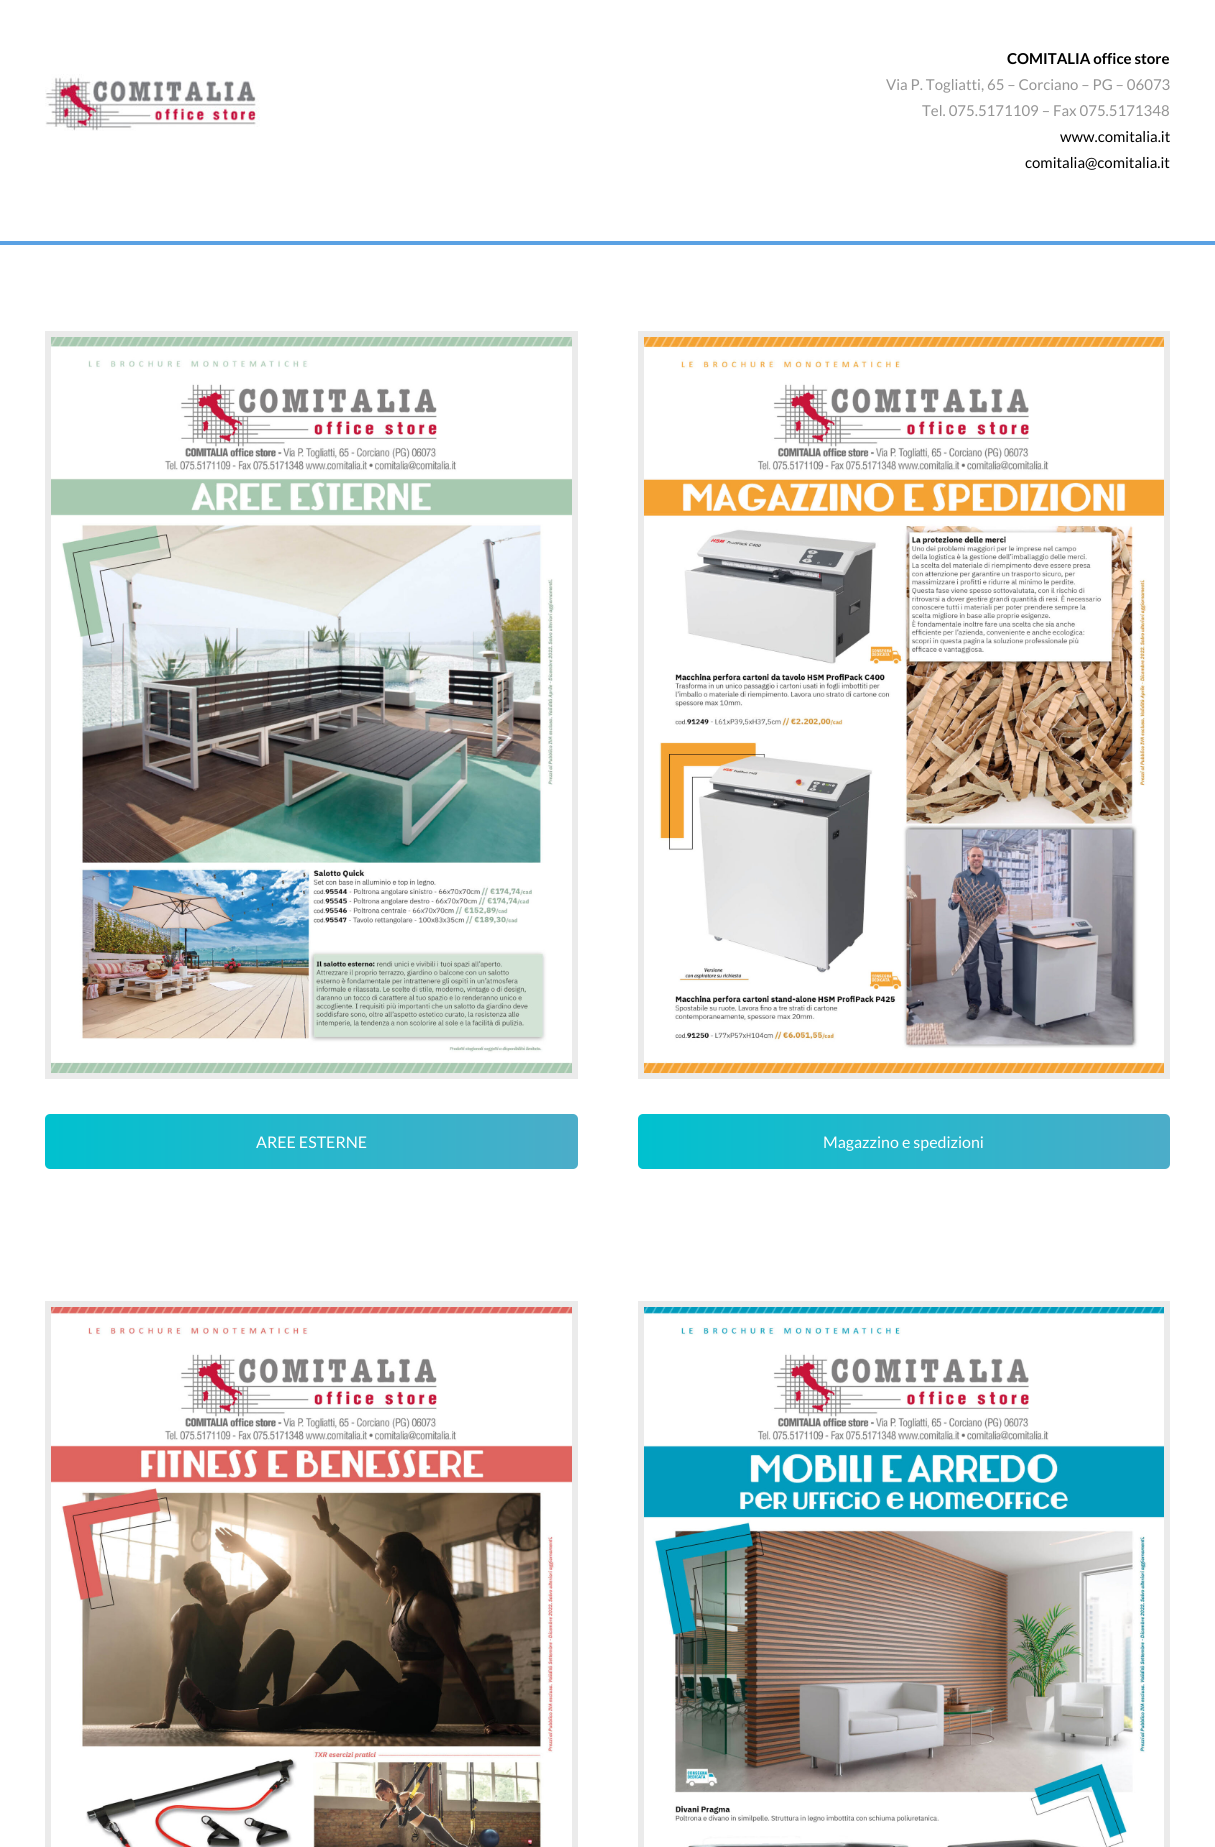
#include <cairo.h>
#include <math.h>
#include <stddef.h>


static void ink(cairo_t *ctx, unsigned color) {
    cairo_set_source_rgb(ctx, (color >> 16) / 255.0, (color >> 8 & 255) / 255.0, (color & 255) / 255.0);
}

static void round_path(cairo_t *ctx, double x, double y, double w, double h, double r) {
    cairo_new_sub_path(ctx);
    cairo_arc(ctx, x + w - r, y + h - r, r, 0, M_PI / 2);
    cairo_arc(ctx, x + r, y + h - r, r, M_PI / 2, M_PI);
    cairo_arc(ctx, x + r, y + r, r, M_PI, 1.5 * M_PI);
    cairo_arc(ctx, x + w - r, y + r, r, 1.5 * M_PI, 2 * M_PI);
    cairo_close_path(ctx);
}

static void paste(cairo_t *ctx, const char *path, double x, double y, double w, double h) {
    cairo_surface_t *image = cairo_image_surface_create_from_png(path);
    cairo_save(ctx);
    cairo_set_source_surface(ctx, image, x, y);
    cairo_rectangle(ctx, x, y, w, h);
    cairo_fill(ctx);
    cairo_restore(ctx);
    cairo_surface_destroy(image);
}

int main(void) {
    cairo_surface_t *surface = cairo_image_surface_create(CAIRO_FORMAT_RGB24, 1215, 1847);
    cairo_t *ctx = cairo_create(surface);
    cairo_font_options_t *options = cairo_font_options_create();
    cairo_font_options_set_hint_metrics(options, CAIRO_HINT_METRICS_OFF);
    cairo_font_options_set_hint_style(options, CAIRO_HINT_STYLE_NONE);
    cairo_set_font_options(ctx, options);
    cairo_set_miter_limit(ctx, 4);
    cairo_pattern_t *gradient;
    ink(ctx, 0xFFFFFF);
    cairo_paint(ctx);
    paste(ctx, "media/1.png", 45, 74, 215, 57);
    cairo_select_font_face(ctx, "Lato", CAIRO_FONT_SLANT_NORMAL, CAIRO_FONT_WEIGHT_BOLD);
    cairo_set_font_size(ctx, 15);
    ink(ctx, 0x000000);
    cairo_move_to(ctx, 1007, 64);
    cairo_show_text(ctx, "COMITALIA office store");
    cairo_select_font_face(ctx, "Lato", CAIRO_FONT_SLANT_NORMAL, CAIRO_FONT_WEIGHT_NORMAL);
    ink(ctx, 0x959595);
    cairo_move_to(ctx, 886, 90);
    cairo_show_text(ctx, "Via P. Togliatti, 65 – Corciano – PG – 06073");
    cairo_move_to(ctx, 922, 116);
    cairo_show_text(ctx, "Tel. 075.5171109 – Fax 075.5171348");
    ink(ctx, 0x000000);
    cairo_move_to(ctx, 1060, 142);
    cairo_show_text(ctx, "www.comitalia.it");
    cairo_move_to(ctx, 1025, 168);
    cairo_show_text(ctx, "comitalia@comitalia.it");
    ink(ctx, 0x5AA1E3);
    cairo_rectangle(ctx, 0, 241, 1215, 4);
    cairo_fill(ctx);
    ink(ctx, 0xEBEBEB);
    cairo_rectangle(ctx, 45, 331, 533, 748);
    cairo_fill(ctx);
    paste(ctx, "media/2.png", 51, 337, 521, 736);
    gradient = cairo_pattern_create_linear(45, 1142, 1111, 1142);
    cairo_pattern_add_color_stop_rgba(gradient, 0, 0, 0.757, 0.812, 1);
    cairo_pattern_add_color_stop_rgba(gradient, 0.5, 0.298, 0.678, 0.788, 1);
    cairo_pattern_add_color_stop_rgba(gradient, 1, 0, 0.757, 0.812, 1);
    cairo_set_source(ctx, gradient);
    cairo_pattern_destroy(gradient);
    round_path(ctx, 45, 1114, 533, 55, 5);
    cairo_fill(ctx);
    cairo_set_font_size(ctx, 16);
    ink(ctx, 0xFFFFFF);
    cairo_move_to(ctx, 256, 1148);
    cairo_show_text(ctx, "AREE ESTERNE");
    ink(ctx, 0xEBEBEB);
    cairo_rectangle(ctx, 638, 331, 532, 748);
    cairo_fill(ctx);
    paste(ctx, "media/3.png", 644, 337, 520, 736);
    gradient = cairo_pattern_create_linear(638, 1142, 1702, 1142);
    cairo_pattern_add_color_stop_rgba(gradient, 0, 0, 0.757, 0.812, 1);
    cairo_pattern_add_color_stop_rgba(gradient, 0.5, 0.298, 0.678, 0.788, 1);
    cairo_pattern_add_color_stop_rgba(gradient, 1, 0, 0.757, 0.812, 1);
    cairo_set_source(ctx, gradient);
    cairo_pattern_destroy(gradient);
    round_path(ctx, 638, 1114, 532, 55, 5);
    cairo_fill(ctx);
    ink(ctx, 0xFFFFFF);
    cairo_move_to(ctx, 823, 1148);
    cairo_show_text(ctx, "Magazzino e spedizioni");
    ink(ctx, 0xEBEBEB);
    cairo_rectangle(ctx, 45, 1301, 533, 546);
    cairo_fill(ctx);
    paste(ctx, "media/4.png", 51, 1307, 521, 540);
    cairo_rectangle(ctx, 638, 1301, 532, 546);
    cairo_fill(ctx);
    paste(ctx, "media/5.png", 644, 1307, 520, 540);
    cairo_surface_write_to_png(surface, "image.png");
    cairo_font_options_destroy(options);
    cairo_destroy(ctx);
    cairo_surface_destroy(surface);
    return 0;
}
